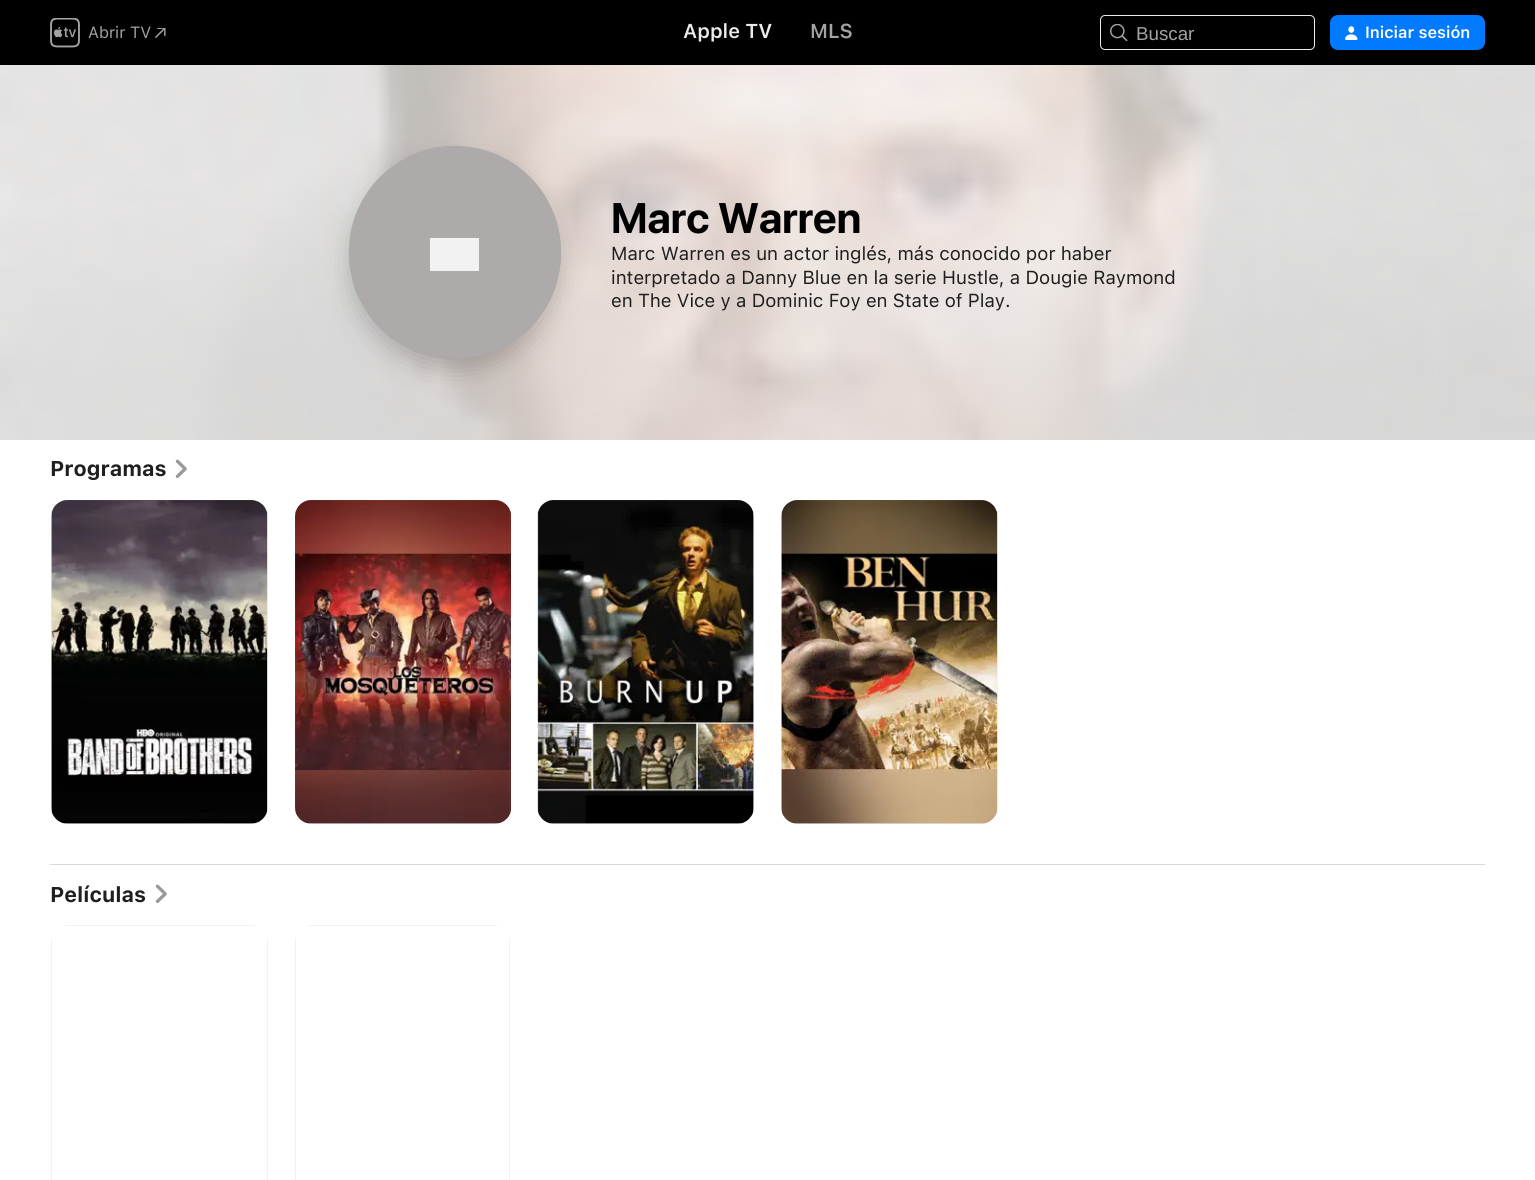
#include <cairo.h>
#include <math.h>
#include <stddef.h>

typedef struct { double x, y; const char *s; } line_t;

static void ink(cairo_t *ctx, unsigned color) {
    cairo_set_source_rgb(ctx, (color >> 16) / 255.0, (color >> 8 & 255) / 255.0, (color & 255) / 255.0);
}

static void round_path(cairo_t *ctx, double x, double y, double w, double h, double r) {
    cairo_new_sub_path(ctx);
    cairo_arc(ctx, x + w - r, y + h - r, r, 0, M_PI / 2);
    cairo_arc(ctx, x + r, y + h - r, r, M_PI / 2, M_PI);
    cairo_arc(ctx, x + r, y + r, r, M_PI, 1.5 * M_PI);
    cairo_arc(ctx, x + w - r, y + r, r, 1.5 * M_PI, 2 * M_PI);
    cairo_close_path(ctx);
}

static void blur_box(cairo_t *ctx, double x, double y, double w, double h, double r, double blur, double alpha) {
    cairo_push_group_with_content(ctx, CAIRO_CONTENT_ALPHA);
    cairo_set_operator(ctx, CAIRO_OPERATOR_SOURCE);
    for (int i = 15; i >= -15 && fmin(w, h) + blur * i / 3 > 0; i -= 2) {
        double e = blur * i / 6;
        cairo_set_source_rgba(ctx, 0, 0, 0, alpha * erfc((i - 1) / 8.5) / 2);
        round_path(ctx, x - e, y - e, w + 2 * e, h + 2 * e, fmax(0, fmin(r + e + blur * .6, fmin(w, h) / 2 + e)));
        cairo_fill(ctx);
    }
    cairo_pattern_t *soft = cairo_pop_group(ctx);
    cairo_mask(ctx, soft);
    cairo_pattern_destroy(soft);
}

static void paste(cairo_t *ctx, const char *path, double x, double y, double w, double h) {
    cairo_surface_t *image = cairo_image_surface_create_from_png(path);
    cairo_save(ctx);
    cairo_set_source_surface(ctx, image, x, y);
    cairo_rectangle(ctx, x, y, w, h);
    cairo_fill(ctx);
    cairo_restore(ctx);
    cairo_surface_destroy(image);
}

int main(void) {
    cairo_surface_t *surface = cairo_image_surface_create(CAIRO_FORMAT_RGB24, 1535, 1180);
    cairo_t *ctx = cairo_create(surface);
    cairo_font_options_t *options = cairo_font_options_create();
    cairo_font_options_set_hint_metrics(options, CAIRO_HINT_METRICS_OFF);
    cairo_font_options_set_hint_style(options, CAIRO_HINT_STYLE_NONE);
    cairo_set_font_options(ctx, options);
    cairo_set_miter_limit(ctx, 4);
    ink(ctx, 0xFFFFFF);
    cairo_paint(ctx);
    ink(ctx, 0x000000);
    cairo_rectangle(ctx, 0, 0, 1535, 65);
    cairo_fill(ctx);
    paste(ctx, "media/1.png", 50, 18, 30, 30);
    cairo_select_font_face(ctx, "SF", CAIRO_FONT_SLANT_NORMAL, CAIRO_FONT_WEIGHT_NORMAL);
    cairo_set_font_size(ctx, 16.25);
    ink(ctx, 0xA3A3A3);
    cairo_move_to(ctx, 88, 38);
    cairo_show_text(ctx, "Abrir TV");
    paste(ctx, "media/2.png", 155, 28, 11, 10);
    cairo_select_font_face(ctx, "SF SemiBold", CAIRO_FONT_SLANT_NORMAL, CAIRO_FONT_WEIGHT_NORMAL);
    cairo_set_font_size(ctx, 20);
    ink(ctx, 0xEBEBEB);
    cairo_move_to(ctx, 683, 38);
    cairo_show_text(ctx, "Apple TV");
    ink(ctx, 0xA3A3A3);
    cairo_move_to(ctx, 810, 38);
    cairo_show_text(ctx, "MLS");
    round_path(ctx, 1100.5, 15.5, 214, 34, 4.5);
    ink(ctx, 0xEBEBEB);
    cairo_set_line_width(ctx, 1);
    cairo_stroke(ctx);
    paste(ctx, "media/3.png", 1110, 24, 18, 17);
    cairo_select_font_face(ctx, "Liberation Sans", CAIRO_FONT_SLANT_NORMAL, CAIRO_FONT_WEIGHT_NORMAL);
    cairo_set_font_size(ctx, 18.75);
    ink(ctx, 0xA3A3A3);
    cairo_move_to(ctx, 1136, 40);
    cairo_show_text(ctx, "Buscar");
    ink(ctx, 0x007AFF);
    round_path(ctx, 1330, 15, 155, 35, 8);
    cairo_fill(ctx);
    paste(ctx, "media/4.png", 1345, 26, 13, 14);
    cairo_select_font_face(ctx, "SF SemiBold", CAIRO_FONT_SLANT_NORMAL, CAIRO_FONT_WEIGHT_NORMAL);
    cairo_set_font_size(ctx, 16.25);
    ink(ctx, 0xFFFFFF);
    cairo_move_to(ctx, 1365, 38);
    cairo_show_text(ctx, "Iniciar sesión");
    paste(ctx, "media/5.png", 0, 65, 1535, 375);
    ink(ctx, 0x000000);
    blur_box(ctx, 349, 159, 212, 212, 106, 12.5, 0.2);
    round_path(ctx, 349.5, 146.5, 211, 212, 105.5);
    cairo_set_source_rgba(ctx, 0, 0, 0, 0.08);
    cairo_stroke(ctx);
    ink(ctx, 0xB2AFAE);
    round_path(ctx, 349, 146, 212, 213, 106);
    cairo_fill(ctx);
    ink(ctx, 0xFFFFFF);
    cairo_rectangle(ctx, 430, 238, 49, 33);
    cairo_fill(ctx);
    cairo_set_source_rgba(ctx, 0.502, 0.502, 0.502, 0.1);
    cairo_new_path(ctx);
    cairo_move_to(ctx, 455, 146);
    cairo_curve_to(ctx, 514, 146, 561, 193, 561, 252);
    cairo_line_to(ctx, 561, 253);
    cairo_curve_to(ctx, 561, 312, 514, 359, 455, 359);
    cairo_curve_to(ctx, 396, 359, 349, 312, 349, 253);
    cairo_line_to(ctx, 349, 252);
    cairo_curve_to(ctx, 349, 193, 396, 146, 455, 146);
    cairo_close_path(ctx);
    cairo_fill(ctx);
    cairo_select_font_face(ctx, "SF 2", CAIRO_FONT_SLANT_NORMAL, CAIRO_FONT_WEIGHT_BOLD);
    cairo_set_font_size(ctx, 42.5);
    ink(ctx, 0x000000);
    cairo_move_to(ctx, 611, 233);
    cairo_show_text(ctx, "Marc Warren");
    cairo_select_font_face(ctx, "SF", CAIRO_FONT_SLANT_NORMAL, CAIRO_FONT_WEIGHT_NORMAL);
    cairo_set_font_size(ctx, 18.75);
    ink(ctx, 0x1F1F1F);
    {
        static const line_t items[] = {
            {611, 260, "Marc Warren es un actor inglés, más conocido por haber"},
            {611, 284, "interpretado a Danny Blue en la serie Hustle, a Dougie Raymond"},
            {611, 307, "en The Vice y a Dominic Foy en State of Play."},
        };
        for (size_t i = 0; i < sizeof items / sizeof *items; i++) {
            cairo_move_to(ctx, items[i].x, items[i].y);
            cairo_show_text(ctx, items[i].s);
        }
    }
    cairo_select_font_face(ctx, "SF", CAIRO_FONT_SLANT_NORMAL, CAIRO_FONT_WEIGHT_BOLD);
    cairo_set_font_size(ctx, 21.25);
    cairo_move_to(ctx, 50, 476);
    cairo_show_text(ctx, "Programas");
    paste(ctx, "media/6.png", 175, 459, 12, 19);
    paste(ctx, "media/7.png", 51, 500, 217, 324);
    cairo_set_source_rgba(ctx, 0.502, 0.502, 0.502, 0.1);
    cairo_set_fill_rule(ctx, CAIRO_FILL_RULE_EVEN_ODD);
    cairo_new_path(ctx);
    cairo_move_to(ctx, 51, 516);
    cairo_line_to(ctx, 51, 808);
    cairo_line_to(ctx, 52, 814);
    cairo_line_to(ctx, 52, 510);
    cairo_close_path(ctx);
    cairo_move_to(ctx, 67, 500);
    cairo_line_to(ctx, 61, 501);
    cairo_line_to(ctx, 258, 501);
    cairo_line_to(ctx, 252, 500);
    cairo_close_path(ctx);
    cairo_move_to(ctx, 268, 516);
    cairo_line_to(ctx, 267, 510);
    cairo_line_to(ctx, 267, 814);
    cairo_line_to(ctx, 268, 808);
    cairo_close_path(ctx);
    cairo_move_to(ctx, 252, 824);
    cairo_line_to(ctx, 258, 823);
    cairo_line_to(ctx, 61, 823);
    cairo_line_to(ctx, 67, 824);
    cairo_close_path(ctx);
    cairo_fill(ctx);
    paste(ctx, "media/8.png", 295, 500, 216, 324);
    cairo_new_path(ctx);
    cairo_move_to(ctx, 295, 516);
    cairo_line_to(ctx, 295, 808);
    cairo_line_to(ctx, 296, 814);
    cairo_line_to(ctx, 296, 510);
    cairo_close_path(ctx);
    cairo_move_to(ctx, 311, 500);
    cairo_line_to(ctx, 305, 501);
    cairo_line_to(ctx, 500, 501);
    cairo_line_to(ctx, 494, 500);
    cairo_close_path(ctx);
    cairo_move_to(ctx, 510, 516);
    cairo_line_to(ctx, 509, 510);
    cairo_line_to(ctx, 509, 814);
    cairo_line_to(ctx, 510, 808);
    cairo_close_path(ctx);
    cairo_move_to(ctx, 494, 824);
    cairo_line_to(ctx, 500, 823);
    cairo_line_to(ctx, 305, 823);
    cairo_line_to(ctx, 311, 824);
    cairo_close_path(ctx);
    cairo_fill(ctx);
    paste(ctx, "media/9.png", 537, 500, 217, 324);
    cairo_new_path(ctx);
    cairo_move_to(ctx, 538, 516);
    cairo_line_to(ctx, 538, 808);
    cairo_line_to(ctx, 539, 814);
    cairo_line_to(ctx, 539, 510);
    cairo_close_path(ctx);
    cairo_move_to(ctx, 554, 500);
    cairo_line_to(ctx, 548, 501);
    cairo_line_to(ctx, 744, 501);
    cairo_line_to(ctx, 738, 500);
    cairo_close_path(ctx);
    cairo_move_to(ctx, 754, 516);
    cairo_line_to(ctx, 753, 510);
    cairo_line_to(ctx, 753, 814);
    cairo_line_to(ctx, 754, 808);
    cairo_close_path(ctx);
    cairo_move_to(ctx, 738, 824);
    cairo_line_to(ctx, 744, 823);
    cairo_line_to(ctx, 548, 823);
    cairo_line_to(ctx, 554, 824);
    cairo_close_path(ctx);
    cairo_fill(ctx);
    paste(ctx, "media/10.png", 781, 500, 217, 324);
    cairo_new_path(ctx);
    cairo_move_to(ctx, 781, 516);
    cairo_line_to(ctx, 781, 808);
    cairo_line_to(ctx, 782, 814);
    cairo_line_to(ctx, 782, 510);
    cairo_close_path(ctx);
    cairo_move_to(ctx, 797, 500);
    cairo_line_to(ctx, 791, 501);
    cairo_line_to(ctx, 988, 501);
    cairo_line_to(ctx, 982, 500);
    cairo_close_path(ctx);
    cairo_move_to(ctx, 998, 516);
    cairo_line_to(ctx, 997, 510);
    cairo_line_to(ctx, 997, 814);
    cairo_line_to(ctx, 998, 808);
    cairo_close_path(ctx);
    cairo_move_to(ctx, 982, 824);
    cairo_line_to(ctx, 988, 823);
    cairo_line_to(ctx, 791, 823);
    cairo_line_to(ctx, 797, 824);
    cairo_close_path(ctx);
    cairo_fill(ctx);
    ink(ctx, 0xD9D9D9);
    cairo_rectangle(ctx, 50, 864, 1435, 1);
    cairo_fill(ctx);
    ink(ctx, 0x1F1F1F);
    cairo_move_to(ctx, 50, 902);
    cairo_show_text(ctx, "Películas");
    paste(ctx, "media/6.png", 155, 884, 12, 19);
    ink(ctx, 0xF2F2F2);
    cairo_new_path(ctx);
    cairo_move_to(ctx, 51, 941);
    cairo_line_to(ctx, 51, 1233);
    cairo_line_to(ctx, 52, 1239);
    cairo_line_to(ctx, 52, 935);
    cairo_close_path(ctx);
    cairo_move_to(ctx, 67, 925);
    cairo_line_to(ctx, 61, 926);
    cairo_line_to(ctx, 258, 926);
    cairo_line_to(ctx, 252, 925);
    cairo_close_path(ctx);
    cairo_move_to(ctx, 268, 941);
    cairo_line_to(ctx, 267, 935);
    cairo_line_to(ctx, 267, 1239);
    cairo_line_to(ctx, 268, 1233);
    cairo_close_path(ctx);
    cairo_move_to(ctx, 252, 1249);
    cairo_line_to(ctx, 258, 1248);
    cairo_line_to(ctx, 61, 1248);
    cairo_line_to(ctx, 67, 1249);
    cairo_close_path(ctx);
    cairo_fill(ctx);
    cairo_new_path(ctx);
    cairo_move_to(ctx, 295, 941);
    cairo_line_to(ctx, 295, 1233);
    cairo_line_to(ctx, 296, 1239);
    cairo_line_to(ctx, 296, 935);
    cairo_close_path(ctx);
    cairo_move_to(ctx, 311, 925);
    cairo_line_to(ctx, 305, 926);
    cairo_line_to(ctx, 500, 926);
    cairo_line_to(ctx, 494, 925);
    cairo_close_path(ctx);
    cairo_move_to(ctx, 510, 941);
    cairo_line_to(ctx, 509, 935);
    cairo_line_to(ctx, 509, 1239);
    cairo_line_to(ctx, 510, 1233);
    cairo_close_path(ctx);
    cairo_move_to(ctx, 494, 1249);
    cairo_line_to(ctx, 500, 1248);
    cairo_line_to(ctx, 305, 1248);
    cairo_line_to(ctx, 311, 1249);
    cairo_close_path(ctx);
    cairo_fill(ctx);
    cairo_surface_write_to_png(surface, "image.png");
    cairo_font_options_destroy(options);
    cairo_destroy(ctx);
    cairo_surface_destroy(surface);
    return 0;
}
